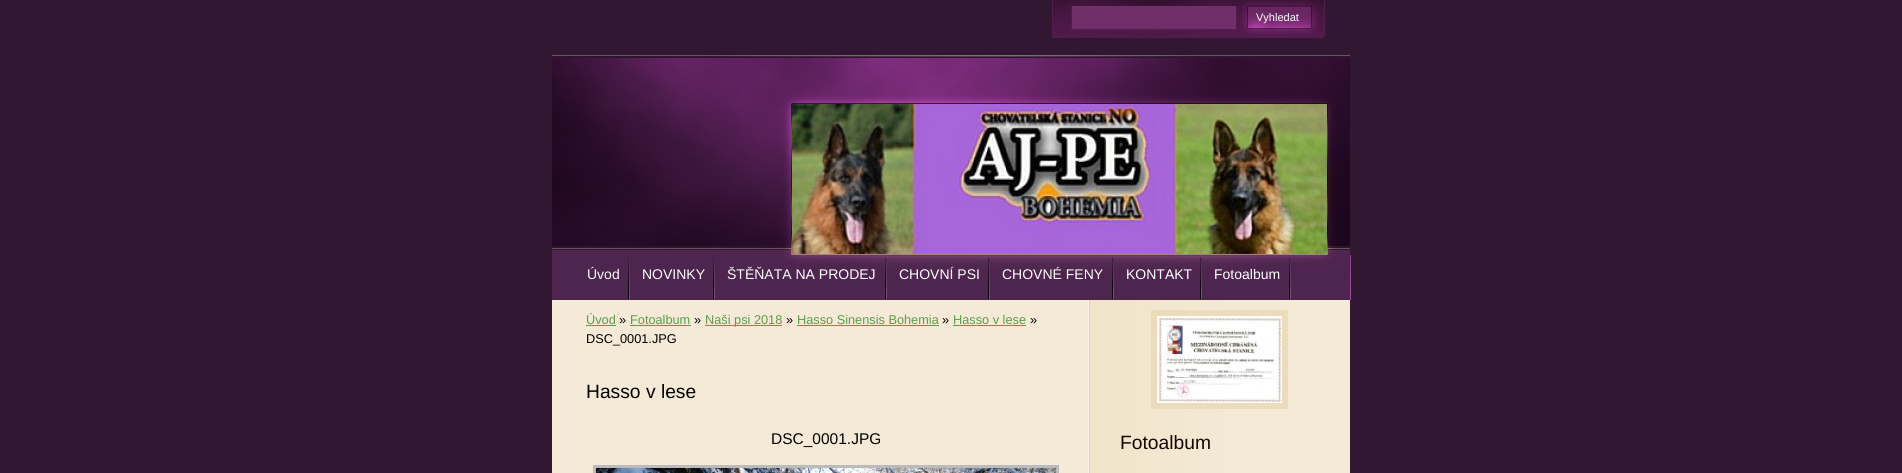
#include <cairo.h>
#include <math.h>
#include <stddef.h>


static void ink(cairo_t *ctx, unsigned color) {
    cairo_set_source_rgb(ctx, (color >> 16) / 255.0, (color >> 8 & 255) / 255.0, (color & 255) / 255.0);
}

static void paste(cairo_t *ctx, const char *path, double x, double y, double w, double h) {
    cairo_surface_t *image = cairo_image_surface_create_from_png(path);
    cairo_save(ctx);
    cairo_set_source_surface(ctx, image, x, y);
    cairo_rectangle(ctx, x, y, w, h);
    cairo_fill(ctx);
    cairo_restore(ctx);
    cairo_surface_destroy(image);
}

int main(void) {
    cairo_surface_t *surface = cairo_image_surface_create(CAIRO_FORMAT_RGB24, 1902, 473);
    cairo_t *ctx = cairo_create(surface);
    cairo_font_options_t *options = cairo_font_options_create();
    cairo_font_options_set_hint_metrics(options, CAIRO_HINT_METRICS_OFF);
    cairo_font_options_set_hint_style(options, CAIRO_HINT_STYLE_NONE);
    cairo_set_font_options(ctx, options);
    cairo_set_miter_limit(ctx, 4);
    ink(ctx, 0x311731);
    cairo_paint(ctx);
    paste(ctx, "media/1.png", 552, 300, 798, 173);
    paste(ctx, "media/2.png", 1052, 0, 273, 38);
    ink(ctx, 0x702F69);
    cairo_rectangle(ctx, 1072, 6, 164, 23);
    cairo_fill(ctx);
    cairo_select_font_face(ctx, "Liberation Sans", CAIRO_FONT_SLANT_NORMAL, CAIRO_FONT_WEIGHT_NORMAL);
    cairo_set_font_size(ctx, 11);
    ink(ctx, 0xFFFFFF);
    cairo_move_to(ctx, 1256, 21);
    cairo_show_text(ctx, "Vyhledat");
    cairo_rectangle(ctx, 1154, 313, 131, 93);
    ink(ctx, 0xECDCBC);
    cairo_set_line_width(ctx, 6);
    cairo_stroke(ctx);
    paste(ctx, "media/3.png", 1157, 316, 125, 87);
    cairo_set_font_size(ctx, 19.25);
    ink(ctx, 0x180400);
    cairo_move_to(ctx, 1120, 449);
    cairo_show_text(ctx, "Fotoalbum");
    paste(ctx, "media/4.png", 551, 255, 800, 45);
    paste(ctx, "media/5.png", 628, 258, 2, 41);
    cairo_set_font_size(ctx, 14);
    ink(ctx, 0xFFFFFF);
    cairo_move_to(ctx, 587, 279);
    cairo_show_text(ctx, "Úvod");
    paste(ctx, "media/5.png", 713, 258, 2, 41);
    cairo_move_to(ctx, 642, 279);
    cairo_show_text(ctx, "NOVINKY");
    paste(ctx, "media/5.png", 885, 258, 2, 41);
    cairo_move_to(ctx, 727, 279);
    cairo_show_text(ctx, "ŠTĚŇATA NA PRODEJ");
    paste(ctx, "media/5.png", 988, 258, 2, 41);
    cairo_move_to(ctx, 899, 279);
    cairo_show_text(ctx, "CHOVNÍ PSI");
    paste(ctx, "media/5.png", 1112, 258, 2, 41);
    cairo_move_to(ctx, 1002, 279);
    cairo_show_text(ctx, "CHOVNÉ FENY");
    paste(ctx, "media/5.png", 1200, 258, 2, 41);
    cairo_move_to(ctx, 1126, 279);
    cairo_show_text(ctx, "KONTAKT");
    paste(ctx, "media/5.png", 1289, 258, 2, 41);
    cairo_move_to(ctx, 1214, 279);
    cairo_show_text(ctx, "Fotoalbum");
    cairo_set_font_size(ctx, 12.75);
    ink(ctx, 0x5C9C4B);
    cairo_move_to(ctx, 586, 324);
    cairo_show_text(ctx, "Úvod");
    cairo_rectangle(ctx, 586, 325, 30, 1);
    cairo_fill(ctx);
    ink(ctx, 0x000000);
    cairo_move_to(ctx, 619, 324);
    cairo_show_text(ctx, "»");
    ink(ctx, 0x5C9C4B);
    cairo_move_to(ctx, 630, 324);
    cairo_show_text(ctx, "Fotoalbum");
    cairo_rectangle(ctx, 630, 325, 61, 1);
    cairo_fill(ctx);
    ink(ctx, 0x000000);
    cairo_move_to(ctx, 694, 324);
    cairo_show_text(ctx, "»");
    ink(ctx, 0x5C9C4B);
    cairo_rectangle(ctx, 705, 325, 77, 1);
    cairo_fill(ctx);
    cairo_move_to(ctx, 705, 324);
    cairo_show_text(ctx, "Naši psi 2018");
    ink(ctx, 0x000000);
    cairo_move_to(ctx, 786, 324);
    cairo_show_text(ctx, "»");
    ink(ctx, 0x5C9C4B);
    cairo_move_to(ctx, 797, 324);
    cairo_show_text(ctx, "Hasso Sinensis Bohemia");
    cairo_rectangle(ctx, 797, 325, 142, 1);
    cairo_fill(ctx);
    ink(ctx, 0x000000);
    cairo_move_to(ctx, 942, 324);
    cairo_show_text(ctx, "»");
    ink(ctx, 0x5C9C4B);
    cairo_move_to(ctx, 953, 324);
    cairo_show_text(ctx, "Hasso v lese");
    cairo_rectangle(ctx, 953, 325, 73, 1);
    cairo_fill(ctx);
    ink(ctx, 0x000000);
    cairo_move_to(ctx, 1030, 324);
    cairo_show_text(ctx, "»");
    cairo_move_to(ctx, 586, 343);
    cairo_show_text(ctx, "DSC_0001.JPG");
    cairo_set_font_size(ctx, 19.25);
    cairo_move_to(ctx, 586, 398);
    cairo_show_text(ctx, "Hasso v lese");
    cairo_set_font_size(ctx, 15.5);
    cairo_move_to(ctx, 771, 444);
    cairo_show_text(ctx, "DSC_0001.JPG");
    cairo_rectangle(ctx, 594.5, 466.5, 463, 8);
    ink(ctx, 0xBBBBBB);
    cairo_set_line_width(ctx, 3);
    cairo_stroke(ctx);
    paste(ctx, "media/6.png", 596, 468, 460, 5);
    paste(ctx, "media/7.png", 552, 55, 798, 200);
    paste(ctx, "media/8.png", 792, 104, 535, 150);
    cairo_surface_write_to_png(surface, "image.png");
    cairo_font_options_destroy(options);
    cairo_destroy(ctx);
    cairo_surface_destroy(surface);
    return 0;
}
